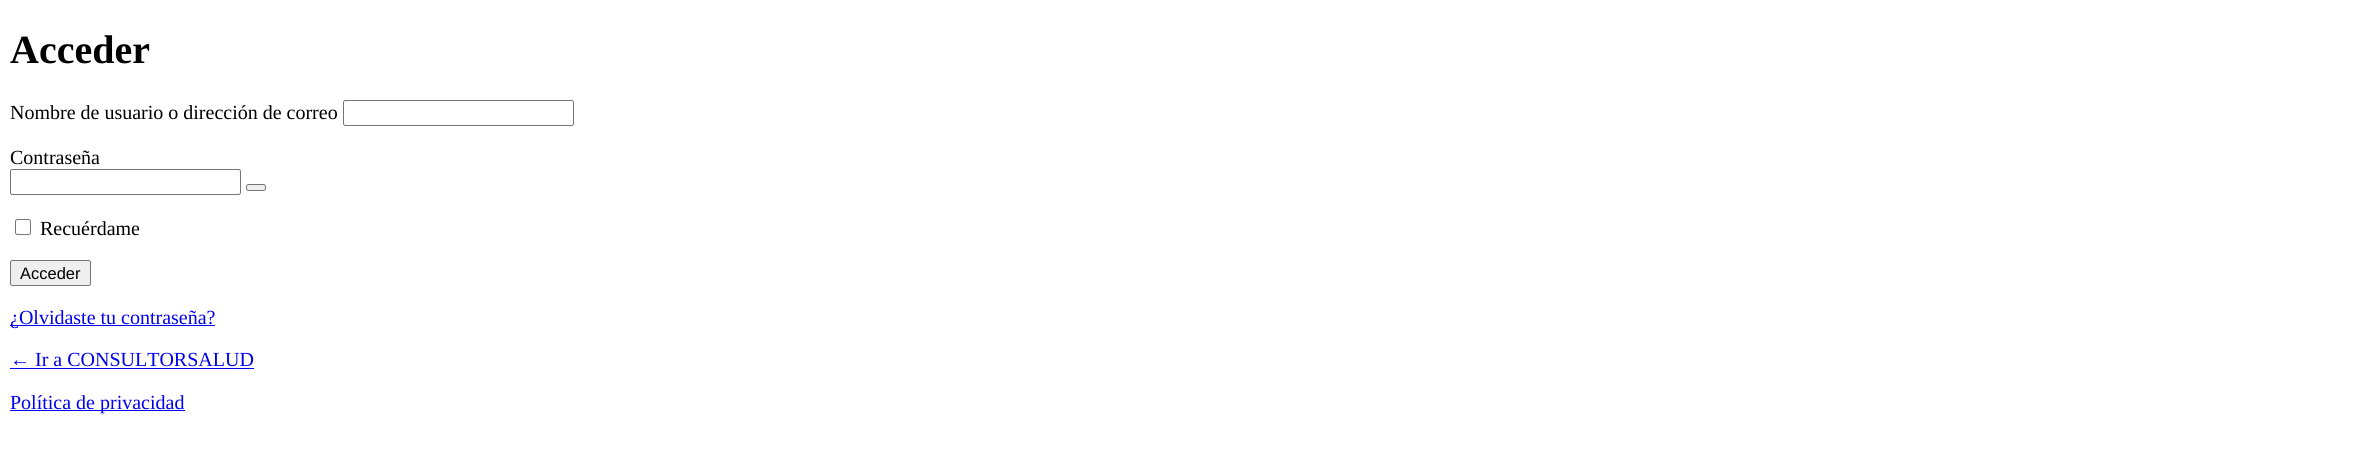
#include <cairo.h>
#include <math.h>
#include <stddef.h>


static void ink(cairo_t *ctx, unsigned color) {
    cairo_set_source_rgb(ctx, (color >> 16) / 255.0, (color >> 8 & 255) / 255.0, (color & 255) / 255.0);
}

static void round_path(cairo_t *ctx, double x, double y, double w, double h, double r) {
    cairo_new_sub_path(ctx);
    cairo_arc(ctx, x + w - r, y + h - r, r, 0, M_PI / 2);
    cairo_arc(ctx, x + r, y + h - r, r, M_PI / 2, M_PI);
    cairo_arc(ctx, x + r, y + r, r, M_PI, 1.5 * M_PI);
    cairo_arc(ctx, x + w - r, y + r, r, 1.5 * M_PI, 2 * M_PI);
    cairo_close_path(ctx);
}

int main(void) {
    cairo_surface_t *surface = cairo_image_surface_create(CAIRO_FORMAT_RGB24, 2370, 469);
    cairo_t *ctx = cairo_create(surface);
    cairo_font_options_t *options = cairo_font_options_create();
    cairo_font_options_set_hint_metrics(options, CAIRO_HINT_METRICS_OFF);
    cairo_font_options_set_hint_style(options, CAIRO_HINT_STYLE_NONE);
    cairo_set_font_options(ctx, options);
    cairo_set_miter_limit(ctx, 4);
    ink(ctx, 0xFFFFFF);
    cairo_paint(ctx);
    cairo_select_font_face(ctx, "Liberation Serif", CAIRO_FONT_SLANT_NORMAL, CAIRO_FONT_WEIGHT_BOLD);
    cairo_set_font_size(ctx, 40);
    ink(ctx, 0x000000);
    cairo_move_to(ctx, 10, 63);
    cairo_show_text(ctx, "Acceder");
    cairo_select_font_face(ctx, "Liberation Serif", CAIRO_FONT_SLANT_NORMAL, CAIRO_FONT_WEIGHT_NORMAL);
    cairo_set_font_size(ctx, 20);
    cairo_move_to(ctx, 10, 119);
    cairo_show_text(ctx, "Nombre de usuario o dirección de correo");
    round_path(ctx, 343.5, 100.5, 230, 25, 2);
    ink(ctx, 0x767676);
    cairo_set_line_width(ctx, 1);
    cairo_stroke(ctx);
    ink(ctx, 0x000000);
    cairo_move_to(ctx, 10, 164);
    cairo_show_text(ctx, "Contraseña");
    round_path(ctx, 10.5, 169.5, 230, 25, 2);
    ink(ctx, 0x767676);
    cairo_stroke(ctx);
    ink(ctx, 0xEFEFEF);
    round_path(ctx, 246.5, 184.5, 19, 6, 2);
    cairo_fill_preserve(ctx);
    ink(ctx, 0x767676);
    cairo_stroke(ctx);
    round_path(ctx, 15.5, 219.5, 15, 15, 2);
    cairo_stroke(ctx);
    ink(ctx, 0x000000);
    cairo_move_to(ctx, 40, 235);
    cairo_show_text(ctx, "Recuérdame");
    ink(ctx, 0xEFEFEF);
    round_path(ctx, 10.5, 260.5, 80, 25, 2);
    cairo_fill_preserve(ctx);
    ink(ctx, 0x767676);
    cairo_stroke(ctx);
    cairo_select_font_face(ctx, "Liberation Sans", CAIRO_FONT_SLANT_NORMAL, CAIRO_FONT_WEIGHT_NORMAL);
    cairo_set_font_size(ctx, 16.5);
    ink(ctx, 0x000000);
    cairo_move_to(ctx, 20, 279);
    cairo_show_text(ctx, "Acceder");
    ink(ctx, 0x0000EE);
    cairo_rectangle(ctx, 10, 325, 205, 1);
    cairo_fill(ctx);
    cairo_select_font_face(ctx, "Liberation Serif", CAIRO_FONT_SLANT_NORMAL, CAIRO_FONT_WEIGHT_NORMAL);
    cairo_set_font_size(ctx, 20);
    cairo_move_to(ctx, 10, 324);
    cairo_show_text(ctx, "¿Olvidaste tu contraseña?");
    cairo_move_to(ctx, 10, 366);
    cairo_show_text(ctx, "← Ir a CONSULTORSALUD");
    cairo_rectangle(ctx, 10, 368, 244, 1);
    cairo_fill(ctx);
    cairo_rectangle(ctx, 10, 410, 175, 1);
    cairo_fill(ctx);
    cairo_move_to(ctx, 10, 409);
    cairo_show_text(ctx, "Política de privacidad");
    cairo_surface_write_to_png(surface, "image.png");
    cairo_font_options_destroy(options);
    cairo_destroy(ctx);
    cairo_surface_destroy(surface);
    return 0;
}
